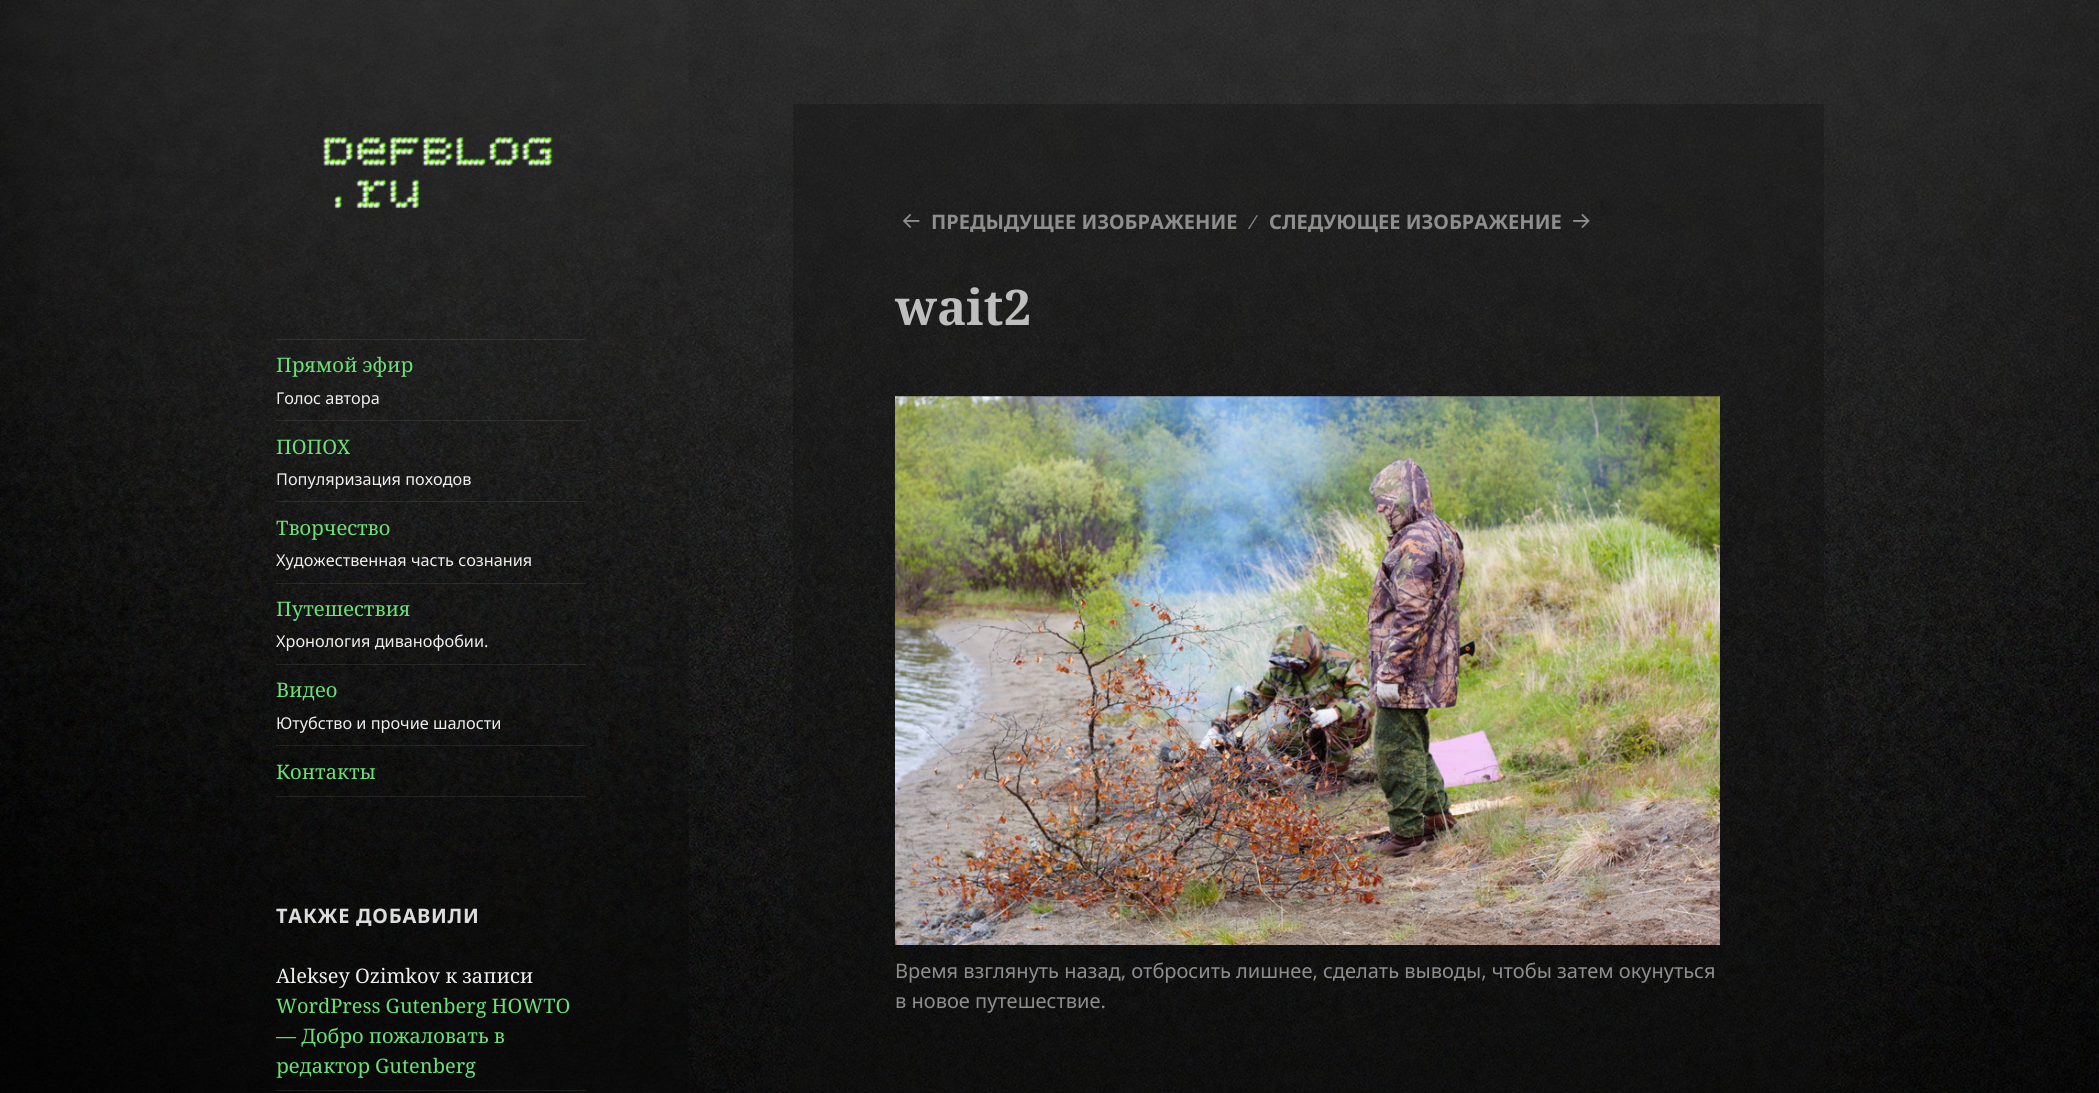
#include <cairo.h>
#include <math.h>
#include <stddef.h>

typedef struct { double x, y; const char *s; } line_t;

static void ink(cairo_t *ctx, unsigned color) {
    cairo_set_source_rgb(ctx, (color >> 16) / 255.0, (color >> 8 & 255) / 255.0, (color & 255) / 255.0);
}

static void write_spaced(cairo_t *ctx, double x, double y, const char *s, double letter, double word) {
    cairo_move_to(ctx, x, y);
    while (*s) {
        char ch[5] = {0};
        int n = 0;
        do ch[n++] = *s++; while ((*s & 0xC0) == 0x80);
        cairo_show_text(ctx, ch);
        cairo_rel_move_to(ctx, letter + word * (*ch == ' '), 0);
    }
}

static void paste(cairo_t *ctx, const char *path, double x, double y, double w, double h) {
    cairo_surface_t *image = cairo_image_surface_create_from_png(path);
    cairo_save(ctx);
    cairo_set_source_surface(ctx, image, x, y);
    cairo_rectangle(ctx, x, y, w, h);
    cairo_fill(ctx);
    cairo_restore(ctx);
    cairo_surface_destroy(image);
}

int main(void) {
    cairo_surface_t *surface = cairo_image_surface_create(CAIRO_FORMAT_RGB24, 2099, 1093);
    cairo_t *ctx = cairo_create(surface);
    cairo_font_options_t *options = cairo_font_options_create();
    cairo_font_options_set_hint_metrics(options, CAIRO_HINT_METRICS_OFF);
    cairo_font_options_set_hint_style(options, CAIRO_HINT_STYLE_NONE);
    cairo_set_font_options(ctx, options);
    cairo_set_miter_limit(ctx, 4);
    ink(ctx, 0xFFFFFF);
    cairo_paint(ctx);
    paste(ctx, "media/1.png", 688, 0, 1411, 1093);
    paste(ctx, "media/2.png", 0, 0, 689, 1093);
    paste(ctx, "media/3.png", 323, 137, 230, 72);
    cairo_set_source_rgba(ctx, 0.867, 0.867, 0.867, 0.1);
    cairo_rectangle(ctx, 276, 339, 310, 1);
    cairo_fill(ctx);
    cairo_rectangle(ctx, 276, 796, 310, 1);
    cairo_fill(ctx);
    cairo_select_font_face(ctx, "Noto Serif", CAIRO_FONT_SLANT_NORMAL, CAIRO_FONT_WEIGHT_NORMAL);
    cairo_set_font_size(ctx, 20);
    ink(ctx, 0x6CE076);
    cairo_move_to(ctx, 276, 372);
    cairo_show_text(ctx, "Прямой эфир");
    cairo_select_font_face(ctx, "Noto Sans", CAIRO_FONT_SLANT_NORMAL, CAIRO_FONT_WEIGHT_NORMAL);
    cairo_set_font_size(ctx, 16.25);
    ink(ctx, 0xEEEEEE);
    cairo_move_to(ctx, 276, 404);
    cairo_show_text(ctx, "Голос автора");
    cairo_set_source_rgba(ctx, 0.867, 0.867, 0.867, 0.1);
    cairo_rectangle(ctx, 276, 420, 310, 1);
    cairo_fill(ctx);
    cairo_select_font_face(ctx, "Noto Serif", CAIRO_FONT_SLANT_NORMAL, CAIRO_FONT_WEIGHT_NORMAL);
    cairo_set_font_size(ctx, 20);
    ink(ctx, 0x6CE076);
    cairo_move_to(ctx, 276, 454);
    cairo_show_text(ctx, "ПОПОХ");
    cairo_select_font_face(ctx, "Noto Sans", CAIRO_FONT_SLANT_NORMAL, CAIRO_FONT_WEIGHT_NORMAL);
    cairo_set_font_size(ctx, 16.25);
    ink(ctx, 0xEEEEEE);
    cairo_move_to(ctx, 276, 485);
    cairo_show_text(ctx, "Популяризация походов");
    cairo_set_source_rgba(ctx, 0.867, 0.867, 0.867, 0.1);
    cairo_rectangle(ctx, 276, 501, 310, 1);
    cairo_fill(ctx);
    cairo_select_font_face(ctx, "Noto Serif", CAIRO_FONT_SLANT_NORMAL, CAIRO_FONT_WEIGHT_NORMAL);
    cairo_set_font_size(ctx, 20);
    ink(ctx, 0x6CE076);
    cairo_move_to(ctx, 276, 535);
    cairo_show_text(ctx, "Творчество");
    cairo_select_font_face(ctx, "Noto Sans", CAIRO_FONT_SLANT_NORMAL, CAIRO_FONT_WEIGHT_NORMAL);
    cairo_set_font_size(ctx, 16.25);
    ink(ctx, 0xEEEEEE);
    cairo_move_to(ctx, 276, 566);
    cairo_show_text(ctx, "Художественная часть сознания");
    cairo_set_source_rgba(ctx, 0.867, 0.867, 0.867, 0.1);
    cairo_rectangle(ctx, 276, 583, 310, 1);
    cairo_fill(ctx);
    cairo_select_font_face(ctx, "Noto Serif", CAIRO_FONT_SLANT_NORMAL, CAIRO_FONT_WEIGHT_NORMAL);
    cairo_set_font_size(ctx, 20);
    ink(ctx, 0x6CE076);
    cairo_move_to(ctx, 276, 616);
    cairo_show_text(ctx, "Путешествия");
    cairo_select_font_face(ctx, "Noto Sans", CAIRO_FONT_SLANT_NORMAL, CAIRO_FONT_WEIGHT_NORMAL);
    cairo_set_font_size(ctx, 16.25);
    ink(ctx, 0xEEEEEE);
    cairo_move_to(ctx, 276, 647);
    cairo_show_text(ctx, "Хронология диванофобии.");
    cairo_set_source_rgba(ctx, 0.867, 0.867, 0.867, 0.1);
    cairo_rectangle(ctx, 276, 664, 310, 1);
    cairo_fill(ctx);
    cairo_select_font_face(ctx, "Noto Serif", CAIRO_FONT_SLANT_NORMAL, CAIRO_FONT_WEIGHT_NORMAL);
    cairo_set_font_size(ctx, 20);
    ink(ctx, 0x6CE076);
    cairo_move_to(ctx, 276, 697);
    cairo_show_text(ctx, "Видео");
    cairo_select_font_face(ctx, "Noto Sans", CAIRO_FONT_SLANT_NORMAL, CAIRO_FONT_WEIGHT_NORMAL);
    cairo_set_font_size(ctx, 16.25);
    ink(ctx, 0xEEEEEE);
    cairo_move_to(ctx, 276, 729);
    cairo_show_text(ctx, "Ютубство и прочие шалости");
    cairo_set_source_rgba(ctx, 0.867, 0.867, 0.867, 0.1);
    cairo_rectangle(ctx, 276, 745, 310, 1);
    cairo_fill(ctx);
    cairo_select_font_face(ctx, "Noto Serif", CAIRO_FONT_SLANT_NORMAL, CAIRO_FONT_WEIGHT_NORMAL);
    cairo_set_font_size(ctx, 20);
    ink(ctx, 0x6CE076);
    cairo_move_to(ctx, 276, 779);
    cairo_show_text(ctx, "Контакты");
    cairo_select_font_face(ctx, "Noto Sans", CAIRO_FONT_SLANT_NORMAL, CAIRO_FONT_WEIGHT_BOLD);
    ink(ctx, 0xDDDDDD);
    write_spaced(ctx, 276, 923, "ТАКЖЕ ДОБАВИЛИ", 0.75, 0);
    cairo_select_font_face(ctx, "Noto Serif", CAIRO_FONT_SLANT_NORMAL, CAIRO_FONT_WEIGHT_NORMAL);
    ink(ctx, 0xEEEEEE);
    cairo_move_to(ctx, 276, 983);
    cairo_show_text(ctx, "Aleksey Ozimkov к записи");
    ink(ctx, 0x6CE076);
    {
        static const line_t items[] = {
            {276, 1013, "WordPress Gutenberg HOWTO"},
            {276, 1043, "— Добро пожаловать в"},
            {276, 1073, "редактор Gutenberg"},
        };
        for (size_t i = 0; i < sizeof items / sizeof *items; i++) {
            cairo_move_to(ctx, items[i].x, items[i].y);
            cairo_show_text(ctx, items[i].s);
        }
    }
    cairo_set_source_rgba(ctx, 0.867, 0.867, 0.867, 0.1);
    cairo_rectangle(ctx, 276, 1090, 310, 1);
    cairo_fill(ctx);
    cairo_set_source_rgba(ctx, 0.067, 0.067, 0.067, 0.33);
    cairo_rectangle(ctx, 793, 104, 1031, 989);
    cairo_fill(ctx);
    paste(ctx, "media/4.png", 903, 213, 17, 15);
    cairo_select_font_face(ctx, "Noto Sans", CAIRO_FONT_SLANT_NORMAL, CAIRO_FONT_WEIGHT_BOLD);
    ink(ctx, 0x8E8E8E);
    cairo_move_to(ctx, 931, 229);
    cairo_show_text(ctx, "ПРЕДЫДУЩЕЕ ИЗОБРАЖЕНИЕ");
    cairo_select_font_face(ctx, "Liberation Sans", CAIRO_FONT_SLANT_NORMAL, CAIRO_FONT_WEIGHT_NORMAL);
    cairo_move_to(ctx, 1252, 229);
    cairo_show_text(ctx, "∕");
    cairo_select_font_face(ctx, "Noto Sans", CAIRO_FONT_SLANT_NORMAL, CAIRO_FONT_WEIGHT_BOLD);
    cairo_move_to(ctx, 1269, 229);
    cairo_show_text(ctx, "СЛЕДУЮЩЕЕ ИЗОБРАЖЕНИЕ");
    paste(ctx, "media/5.png", 1573, 213, 17, 15);
    cairo_select_font_face(ctx, "Noto Serif", CAIRO_FONT_SLANT_NORMAL, CAIRO_FONT_WEIGHT_BOLD);
    cairo_set_font_size(ctx, 49);
    ink(ctx, 0xBEBEBE);
    cairo_move_to(ctx, 895, 325);
    cairo_show_text(ctx, "wait2");
    paste(ctx, "media/6.png", 895, 396, 825, 549);
    cairo_select_font_face(ctx, "Noto Sans", CAIRO_FONT_SLANT_NORMAL, CAIRO_FONT_WEIGHT_NORMAL);
    cairo_set_font_size(ctx, 20);
    ink(ctx, 0x8E8E8E);
    cairo_move_to(ctx, 895, 978);
    cairo_show_text(ctx, "Время взглянуть назад, отбросить лишнее, сделать выводы, чтобы затем окунуться");
    cairo_move_to(ctx, 895, 1008);
    cairo_show_text(ctx, "в новое путешествие.");
    cairo_surface_write_to_png(surface, "image.png");
    cairo_font_options_destroy(options);
    cairo_destroy(ctx);
    cairo_surface_destroy(surface);
    return 0;
}
